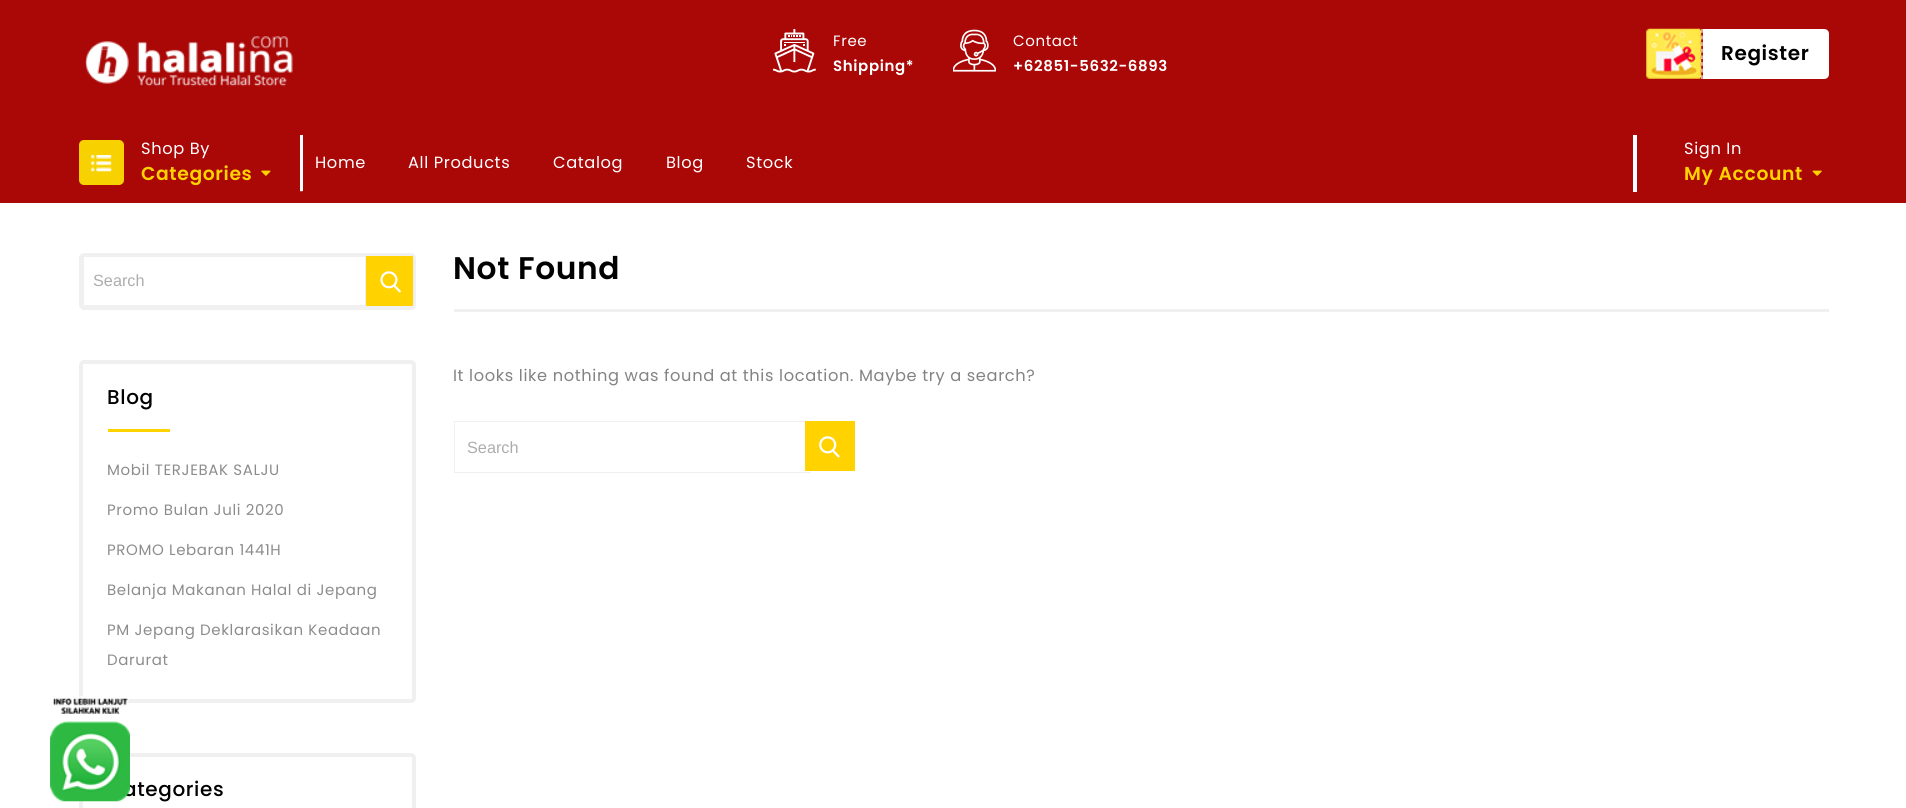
#include <cairo.h>
#include <math.h>
#include <stddef.h>

typedef struct { double x, y; const char *s; } line_t;

static void ink(cairo_t *ctx, unsigned color) {
    cairo_set_source_rgb(ctx, (color >> 16) / 255.0, (color >> 8 & 255) / 255.0, (color & 255) / 255.0);
}

static void write_spaced(cairo_t *ctx, double x, double y, const char *s, double letter, double word) {
    cairo_move_to(ctx, x, y);
    while (*s) {
        char ch[5] = {0};
        int n = 0;
        do ch[n++] = *s++; while ((*s & 0xC0) == 0x80);
        cairo_show_text(ctx, ch);
        cairo_rel_move_to(ctx, letter + word * (*ch == ' '), 0);
    }
}

static void round_path(cairo_t *ctx, double x, double y, double w, double h, double r) {
    cairo_new_sub_path(ctx);
    cairo_arc(ctx, x + w - r, y + h - r, r, 0, M_PI / 2);
    cairo_arc(ctx, x + r, y + h - r, r, M_PI / 2, M_PI);
    cairo_arc(ctx, x + r, y + r, r, M_PI, 1.5 * M_PI);
    cairo_arc(ctx, x + w - r, y + r, r, 1.5 * M_PI, 2 * M_PI);
    cairo_close_path(ctx);
}

static void paste(cairo_t *ctx, const char *path, double x, double y, double w, double h) {
    cairo_surface_t *image = cairo_image_surface_create_from_png(path);
    cairo_save(ctx);
    cairo_set_source_surface(ctx, image, x, y);
    cairo_rectangle(ctx, x, y, w, h);
    cairo_fill(ctx);
    cairo_restore(ctx);
    cairo_surface_destroy(image);
}

int main(void) {
    cairo_surface_t *surface = cairo_image_surface_create(CAIRO_FORMAT_RGB24, 1906, 808);
    cairo_t *ctx = cairo_create(surface);
    cairo_font_options_t *options = cairo_font_options_create();
    cairo_font_options_set_hint_metrics(options, CAIRO_HINT_METRICS_OFF);
    cairo_font_options_set_hint_style(options, CAIRO_HINT_STYLE_NONE);
    cairo_set_font_options(ctx, options);
    cairo_set_miter_limit(ctx, 4);
    ink(ctx, 0xFFFFFF);
    cairo_paint(ctx);
    round_path(ctx, 81, 362, 333, 339, 3);
    ink(ctx, 0xF0F0F0);
    cairo_set_line_width(ctx, 4);
    cairo_stroke(ctx);
    round_path(ctx, 81, 755, 333, 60, 3);
    cairo_stroke(ctx);
    cairo_select_font_face(ctx, "Poppins Medium", CAIRO_FONT_SLANT_NORMAL, CAIRO_FONT_WEIGHT_NORMAL);
    cairo_set_font_size(ctx, 20);
    ink(ctx, 0x000000);
    write_spaced(ctx, 123, 796, "ategories", 0.62, 0);
    paste(ctx, "media/1.png", 50, 696, 80, 106);
    ink(ctx, 0xAA0707);
    cairo_rectangle(ctx, 0, 0, 1906, 203);
    cairo_fill(ctx);
    paste(ctx, "media/2.png", 85, 36, 208, 51);
    paste(ctx, "media/3.png", 773, 29, 43, 44);
    cairo_select_font_face(ctx, "Poppins", CAIRO_FONT_SLANT_NORMAL, CAIRO_FONT_WEIGHT_NORMAL);
    cairo_set_font_size(ctx, 15);
    ink(ctx, 0xFFFFFF);
    write_spaced(ctx, 833, 46, "Free", 0.62, 0);
    cairo_select_font_face(ctx, "Poppins SemiBold", CAIRO_FONT_SLANT_NORMAL, CAIRO_FONT_WEIGHT_NORMAL);
    write_spaced(ctx, 833, 71, "Shipping*", 0.62, 0);
    paste(ctx, "media/4.png", 953, 29, 43, 43);
    cairo_select_font_face(ctx, "Poppins", CAIRO_FONT_SLANT_NORMAL, CAIRO_FONT_WEIGHT_NORMAL);
    write_spaced(ctx, 1013, 46, "Contact", 0.62, 0);
    cairo_select_font_face(ctx, "Poppins SemiBold", CAIRO_FONT_SLANT_NORMAL, CAIRO_FONT_WEIGHT_NORMAL);
    write_spaced(ctx, 1013, 71, "+62851-5632-6893", 0.62, 0);
    paste(ctx, "media/5.png", 1646, 28, 56, 51);
    cairo_new_path(ctx);
    cairo_move_to(ctx, 1702, 29);
    cairo_line_to(ctx, 1702, 79);
    cairo_set_line_width(ctx, 1.2);
    cairo_set_dash(ctx, (double[]){3.75, 2.86}, 2, 0);
    cairo_stroke(ctx);
    cairo_new_path(ctx);
    cairo_move_to(ctx, 1703, 29);
    cairo_line_to(ctx, 1824, 29);
    cairo_curve_to(ctx, 1827, 29, 1829, 31, 1829, 34);
    cairo_line_to(ctx, 1829, 74);
    cairo_curve_to(ctx, 1829, 77, 1827, 79, 1824, 79);
    cairo_line_to(ctx, 1703, 79);
    cairo_close_path(ctx);
    cairo_fill(ctx);
    cairo_set_font_size(ctx, 20);
    ink(ctx, 0x000000);
    write_spaced(ctx, 1721, 60, "Register", 0.62, 0);
    ink(ctx, 0xF7D200);
    round_path(ctx, 79, 140, 45, 45, 5);
    cairo_fill(ctx);
    paste(ctx, "media/6.png", 91, 155, 21, 17);
    cairo_select_font_face(ctx, "Poppins", CAIRO_FONT_SLANT_NORMAL, CAIRO_FONT_WEIGHT_NORMAL);
    cairo_set_font_size(ctx, 16.25);
    ink(ctx, 0xFFFFFF);
    write_spaced(ctx, 141, 154, "Shop By", 0.62, 0);
    cairo_select_font_face(ctx, "Poppins SemiBold", CAIRO_FONT_SLANT_NORMAL, CAIRO_FONT_WEIGHT_NORMAL);
    cairo_set_font_size(ctx, 18.75);
    ink(ctx, 0xFFD200);
    write_spaced(ctx, 141, 180, "Categories", 0.62, 0);
    paste(ctx, "media/7.png", 261, 170, 10, 6);
    ink(ctx, 0xFFFFFF);
    cairo_rectangle(ctx, 300, 135, 3, 56);
    cairo_fill(ctx);
    paste(ctx, "media/8.png", 300, 191, 3, 1);
    cairo_select_font_face(ctx, "Poppins", CAIRO_FONT_SLANT_NORMAL, CAIRO_FONT_WEIGHT_NORMAL);
    cairo_set_font_size(ctx, 16.25);
    {
        static const line_t items[] = {
            {315, 168, "Home"},
            {408, 168, "All Products"},
            {553, 168, "Catalog"},
            {666, 168, "Blog"},
            {746, 168, "Stock"},
        };
        for (size_t i = 0; i < sizeof items / sizeof *items; i++) {
            write_spaced(ctx, items[i].x, items[i].y, items[i].s, 0.62, 0);
        }
    }
    cairo_rectangle(ctx, 1633, 135, 4, 57);
    cairo_fill(ctx);
    write_spaced(ctx, 1684, 154, "Sign In", 0.62, 0);
    cairo_select_font_face(ctx, "Poppins SemiBold", CAIRO_FONT_SLANT_NORMAL, CAIRO_FONT_WEIGHT_NORMAL);
    cairo_set_font_size(ctx, 18.75);
    ink(ctx, 0xFFD200);
    write_spaced(ctx, 1684, 180, "My Account", 0.62, 0);
    paste(ctx, "media/9.png", 1812, 170, 10, 6);
    round_path(ctx, 81, 255, 333, 53, 3);
    ink(ctx, 0xF0F0F0);
    cairo_set_line_width(ctx, 4);
    cairo_set_dash(ctx, NULL, 0, 0);
    cairo_stroke(ctx);
    ink(ctx, 0xFFFFFF);
    cairo_new_path(ctx);
    cairo_move_to(ctx, 84, 256);
    cairo_line_to(ctx, 366, 256);
    cairo_line_to(ctx, 366, 306);
    cairo_line_to(ctx, 84, 306);
    cairo_curve_to(ctx, 83.5, 306, 83, 305.5, 83, 305);
    cairo_line_to(ctx, 83, 257);
    cairo_curve_to(ctx, 83, 256.5, 83.5, 256, 84, 256);
    cairo_close_path(ctx);
    cairo_fill(ctx);
    ink(ctx, 0xF0F0F0);
    cairo_set_fill_rule(ctx, CAIRO_FILL_RULE_EVEN_ODD);
    cairo_new_path(ctx);
    cairo_move_to(ctx, 84, 256);
    cairo_curve_to(ctx, 83, 256, 83, 256, 83, 257);
    cairo_line_to(ctx, 83, 305);
    cairo_curve_to(ctx, 83, 306, 83, 306, 84, 306);
    cairo_line_to(ctx, 366, 306);
    cairo_line_to(ctx, 366, 256);
    cairo_close_path(ctx);
    cairo_move_to(ctx, 84, 257);
    cairo_line_to(ctx, 84, 305);
    cairo_line_to(ctx, 365, 305);
    cairo_line_to(ctx, 365, 257);
    cairo_close_path(ctx);
    cairo_fill(ctx);
    cairo_select_font_face(ctx, "Liberation Sans", CAIRO_FONT_SLANT_NORMAL, CAIRO_FONT_WEIGHT_NORMAL);
    cairo_set_font_size(ctx, 16.25);
    ink(ctx, 0xADADAD);
    cairo_move_to(ctx, 93, 286);
    cairo_show_text(ctx, "Search");
    ink(ctx, 0xFFD200);
    cairo_new_path(ctx);
    cairo_move_to(ctx, 366, 256);
    cairo_line_to(ctx, 412, 256);
    cairo_curve_to(ctx, 412.5, 256, 413, 256.5, 413, 257);
    cairo_line_to(ctx, 413, 305);
    cairo_curve_to(ctx, 413, 305.5, 412.5, 306, 412, 306);
    cairo_line_to(ctx, 366, 306);
    cairo_close_path(ctx);
    cairo_fill(ctx);
    paste(ctx, "media/10.png", 380, 271, 21, 22);
    cairo_select_font_face(ctx, "Poppins Medium", CAIRO_FONT_SLANT_NORMAL, CAIRO_FONT_WEIGHT_NORMAL);
    cairo_set_font_size(ctx, 20);
    ink(ctx, 0x000000);
    write_spaced(ctx, 107, 404, "Blog", 0.62, 0);
    ink(ctx, 0xFFD200);
    cairo_rectangle(ctx, 108, 429, 62, 3);
    cairo_fill(ctx);
    cairo_select_font_face(ctx, "Poppins", CAIRO_FONT_SLANT_NORMAL, CAIRO_FONT_WEIGHT_NORMAL);
    cairo_set_font_size(ctx, 15);
    ink(ctx, 0x8C8C8C);
    {
        static const line_t items[] = {
            {107, 475, "Mobil TERJEBAK SALJU"},
            {107, 515, "Promo Bulan Juli 2020"},
            {107, 555, "PROMO Lebaran 1441H"},
            {107, 595, "Belanja Makanan Halal di Jepang"},
            {107, 635, "PM Jepang Deklarasikan Keadaan"},
            {107, 665, "Darurat"},
        };
        for (size_t i = 0; i < sizeof items / sizeof *items; i++) {
            write_spaced(ctx, items[i].x, items[i].y, items[i].s, 0.62, 0);
        }
    }
    ink(ctx, 0xF0F0F0);
    cairo_rectangle(ctx, 454, 309, 1375, 3);
    cairo_fill(ctx);
    cairo_select_font_face(ctx, "Poppins SemiBold", CAIRO_FONT_SLANT_NORMAL, CAIRO_FONT_WEIGHT_NORMAL);
    cairo_set_font_size(ctx, 31.25);
    ink(ctx, 0x000000);
    write_spaced(ctx, 453, 279, "Not Found", 0.62, 0);
    cairo_select_font_face(ctx, "Poppins", CAIRO_FONT_SLANT_NORMAL, CAIRO_FONT_WEIGHT_NORMAL);
    cairo_set_font_size(ctx, 16.25);
    ink(ctx, 0x838383);
    write_spaced(ctx, 453, 381, "It looks like nothing was found at this location. Maybe try a search?", 0.62, 0);
    cairo_rectangle(ctx, 454.5, 421.5, 356, 51);
    ink(ctx, 0xF0F0F0);
    cairo_set_line_width(ctx, 1);
    cairo_stroke(ctx);
    cairo_select_font_face(ctx, "Liberation Sans", CAIRO_FONT_SLANT_NORMAL, CAIRO_FONT_WEIGHT_NORMAL);
    ink(ctx, 0xADADAD);
    cairo_move_to(ctx, 467, 453);
    cairo_show_text(ctx, "Search");
    ink(ctx, 0xFFD200);
    cairo_rectangle(ctx, 805, 421, 50, 50);
    cairo_fill(ctx);
    paste(ctx, "media/11.png", 819, 436, 21, 22);
    cairo_surface_write_to_png(surface, "image.png");
    cairo_font_options_destroy(options);
    cairo_destroy(ctx);
    cairo_surface_destroy(surface);
    return 0;
}
